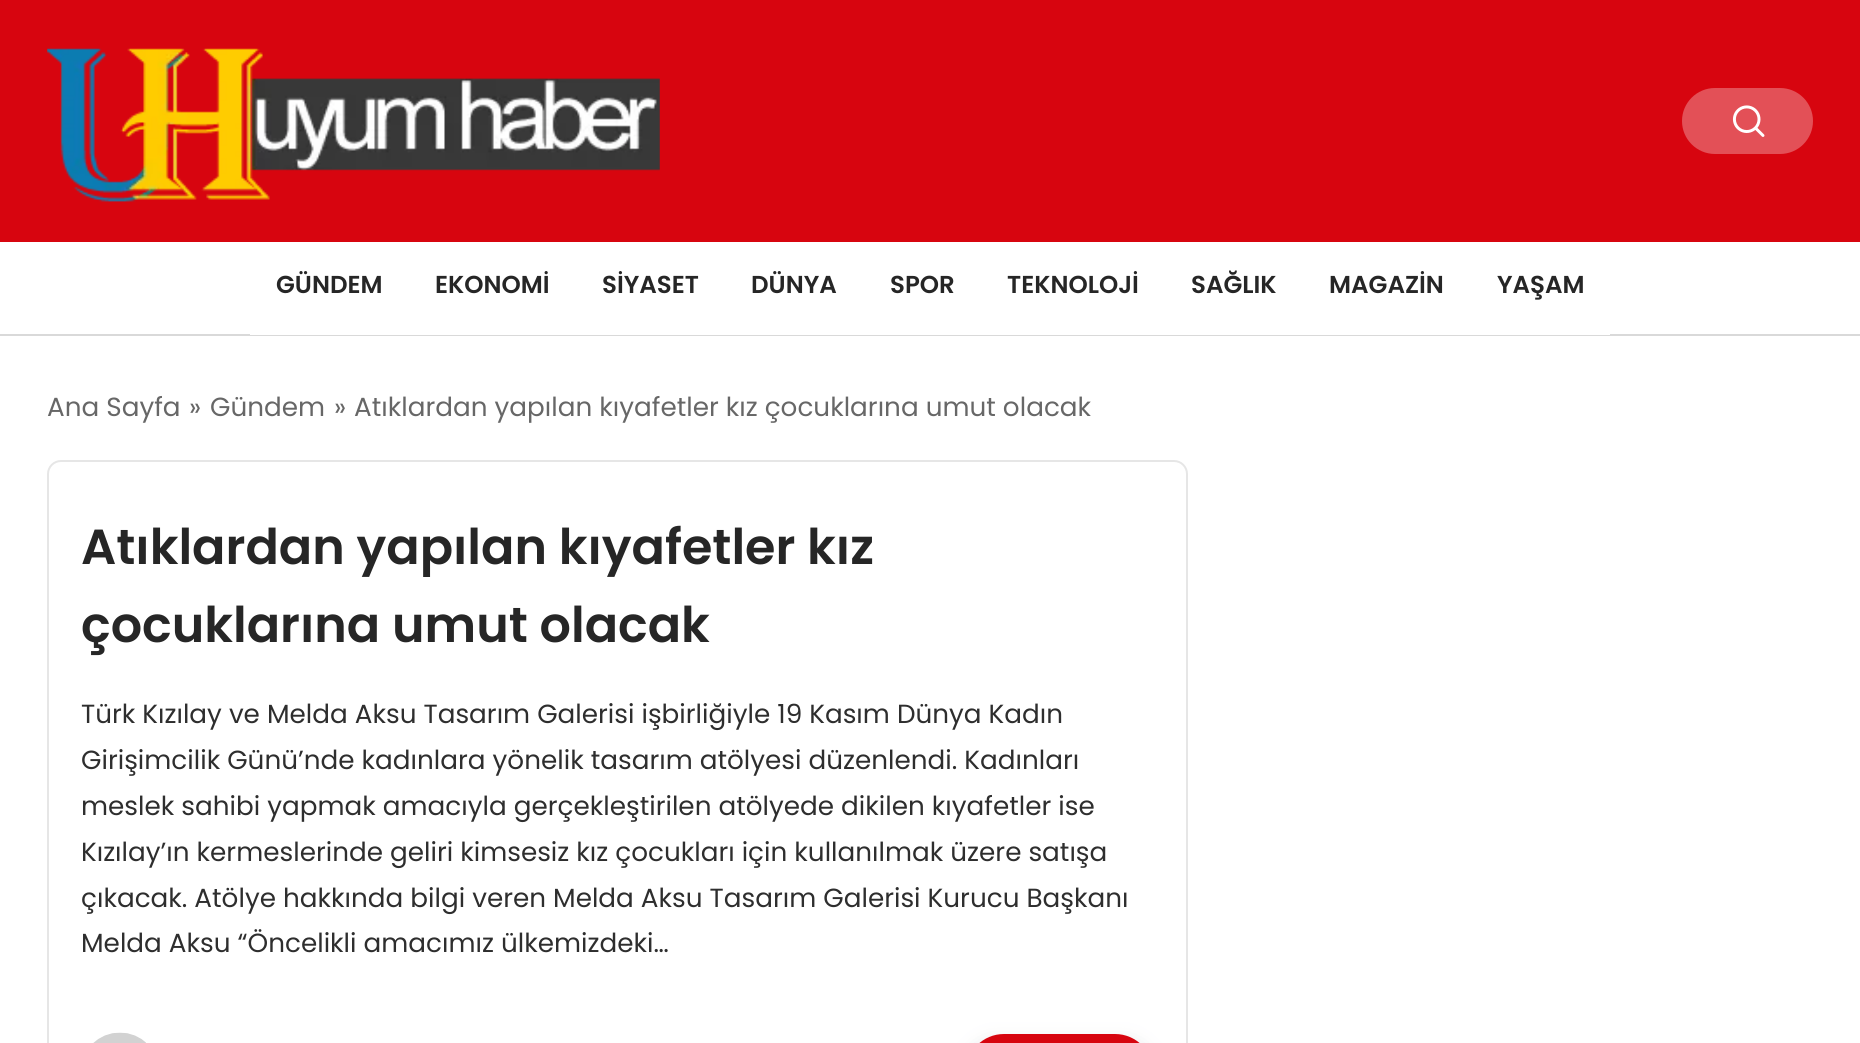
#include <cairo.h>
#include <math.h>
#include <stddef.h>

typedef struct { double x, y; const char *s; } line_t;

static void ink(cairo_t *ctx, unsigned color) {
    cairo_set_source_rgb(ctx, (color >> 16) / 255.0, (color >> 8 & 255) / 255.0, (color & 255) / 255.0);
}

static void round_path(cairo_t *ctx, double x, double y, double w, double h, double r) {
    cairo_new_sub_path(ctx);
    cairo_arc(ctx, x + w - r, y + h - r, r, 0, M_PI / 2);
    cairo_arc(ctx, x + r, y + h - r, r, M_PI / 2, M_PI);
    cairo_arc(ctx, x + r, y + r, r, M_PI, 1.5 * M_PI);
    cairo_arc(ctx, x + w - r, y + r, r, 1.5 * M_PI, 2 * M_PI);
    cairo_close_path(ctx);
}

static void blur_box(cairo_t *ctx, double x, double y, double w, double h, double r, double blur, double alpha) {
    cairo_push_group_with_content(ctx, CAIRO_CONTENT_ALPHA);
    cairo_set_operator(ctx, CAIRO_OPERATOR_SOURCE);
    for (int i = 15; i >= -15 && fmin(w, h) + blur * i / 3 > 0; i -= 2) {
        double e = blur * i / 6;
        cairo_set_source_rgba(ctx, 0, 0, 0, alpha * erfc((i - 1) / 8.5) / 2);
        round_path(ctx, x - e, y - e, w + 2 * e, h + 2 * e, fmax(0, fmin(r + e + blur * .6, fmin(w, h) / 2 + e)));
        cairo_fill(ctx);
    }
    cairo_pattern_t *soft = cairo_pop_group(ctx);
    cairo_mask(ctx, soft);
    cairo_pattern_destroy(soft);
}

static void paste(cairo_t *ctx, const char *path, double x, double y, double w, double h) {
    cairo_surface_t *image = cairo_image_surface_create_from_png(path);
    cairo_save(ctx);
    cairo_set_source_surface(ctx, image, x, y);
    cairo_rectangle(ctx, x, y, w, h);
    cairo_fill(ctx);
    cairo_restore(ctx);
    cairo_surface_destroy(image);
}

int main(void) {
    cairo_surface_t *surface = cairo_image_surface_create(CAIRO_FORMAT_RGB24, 1860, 1043);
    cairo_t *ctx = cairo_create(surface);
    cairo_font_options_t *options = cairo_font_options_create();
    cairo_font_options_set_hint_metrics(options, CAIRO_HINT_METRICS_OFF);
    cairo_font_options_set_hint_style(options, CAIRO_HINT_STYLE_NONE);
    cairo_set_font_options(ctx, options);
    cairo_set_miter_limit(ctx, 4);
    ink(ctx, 0xFFFFFF);
    cairo_paint(ctx);
    ink(ctx, 0xD7050F);
    cairo_rectangle(ctx, 0, 0, 1860, 242);
    cairo_fill(ctx);
    paste(ctx, "media/1.png", 47, 48, 613, 154);
    ink(ctx, 0xE35057);
    round_path(ctx, 1682, 88, 131, 66, 33);
    cairo_fill(ctx);
    paste(ctx, "media/2.png", 1732, 105, 33, 32);
    ink(ctx, 0xD9D9D9);
    cairo_rectangle(ctx, 0, 334, 1860, 2);
    cairo_fill(ctx);
    ink(ctx, 0xFFFFFF);
    cairo_rectangle(ctx, 250, 334, 1360, 1);
    cairo_fill(ctx);
    cairo_select_font_face(ctx, "Poppins SemiBold", CAIRO_FONT_SLANT_NORMAL, CAIRO_FONT_WEIGHT_NORMAL);
    cairo_set_font_size(ctx, 24.5);
    ink(ctx, 0x262626);
    {
        static const line_t items[] = {
            {276, 293, "GÜNDEM"},
            {435, 293, "EKONOMİ"},
            {602, 293, "SİYASET"},
            {751, 293, "DÜNYA"},
            {890, 293, "SPOR"},
            {1007, 293, "TEKNOLOJİ"},
            {1191, 293, "SAĞLIK"},
            {1329, 293, "MAGAZİN"},
            {1497, 293, "YAŞAM"},
        };
        for (size_t i = 0; i < sizeof items / sizeof *items; i++) {
            cairo_move_to(ctx, items[i].x, items[i].y);
            cairo_show_text(ctx, items[i].s);
        }
    }
    cairo_select_font_face(ctx, "Poppins", CAIRO_FONT_SLANT_NORMAL, CAIRO_FONT_WEIGHT_NORMAL);
    cairo_set_font_size(ctx, 26.25);
    ink(ctx, 0x676767);
    {
        static const line_t items[] = {
            {47, 416, "Ana Sayfa"},
            {189, 416, "»"},
            {210, 416, "Gündem"},
            {334, 416, "»"},
            {354, 416, "Atıklardan yapılan kıyafetler kız çocuklarına umut olacak"},
        };
        for (size_t i = 0; i < sizeof items / sizeof *items; i++) {
            cairo_move_to(ctx, items[i].x, items[i].y);
            cairo_show_text(ctx, items[i].s);
        }
    }
    round_path(ctx, 48, 461, 1139, 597, 13);
    ink(ctx, 0xE6E6E6);
    cairo_stroke(ctx);
    cairo_select_font_face(ctx, "Poppins SemiBold", CAIRO_FONT_SLANT_NORMAL, CAIRO_FONT_WEIGHT_NORMAL);
    cairo_set_font_size(ctx, 49.25);
    ink(ctx, 0x262626);
    cairo_move_to(ctx, 81, 564);
    cairo_show_text(ctx, "Atıklardan yapılan kıyafetler kız");
    cairo_move_to(ctx, 81, 642);
    cairo_show_text(ctx, "çocuklarına umut olacak");
    cairo_select_font_face(ctx, "Poppins", CAIRO_FONT_SLANT_NORMAL, CAIRO_FONT_WEIGHT_NORMAL);
    cairo_set_font_size(ctx, 26.25);
    ink(ctx, 0x2E2E2E);
    {
        static const line_t items[] = {
            {81, 723, "Türk Kızılay ve Melda Aksu Tasarım Galerisi işbirliğiyle 19 Kasım Dünya Kadın"},
            {81, 769, "Girişimcilik Günü’nde kadınlara yönelik tasarım atölyesi düzenlendi. Kadınları"},
            {81, 815, "meslek sahibi yapmak amacıyla gerçekleştirilen atölyede dikilen kıyafetler ise"},
            {81, 861, "Kızılay’ın kermeslerinde geliri kimsesiz kız çocukları için kullanılmak üzere satışa"},
            {81, 907, "çıkacak. Atölye hakkında bilgi veren Melda Aksu Tasarım Galerisi Kurucu Başkanı"},
            {81, 952, "Melda Aksu “Öncelikli amacımız ülkemizdeki…"},
        };
        for (size_t i = 0; i < sizeof items / sizeof *items; i++) {
            cairo_move_to(ctx, items[i].x, items[i].y);
            cairo_show_text(ctx, items[i].s);
        }
    }
    paste(ctx, "media/3.png", 93, 1032, 53, 11);
    ink(ctx, 0x6B7280);
    blur_box(ctx, 966, 1041, 187, 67, 38, 9, 0.2);
    ink(ctx, 0xD7050F);
    round_path(ctx, 966, 1034, 187, 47, 38);
    cairo_fill(ctx);
    cairo_surface_write_to_png(surface, "image.png");
    cairo_font_options_destroy(options);
    cairo_destroy(ctx);
    cairo_surface_destroy(surface);
    return 0;
}
